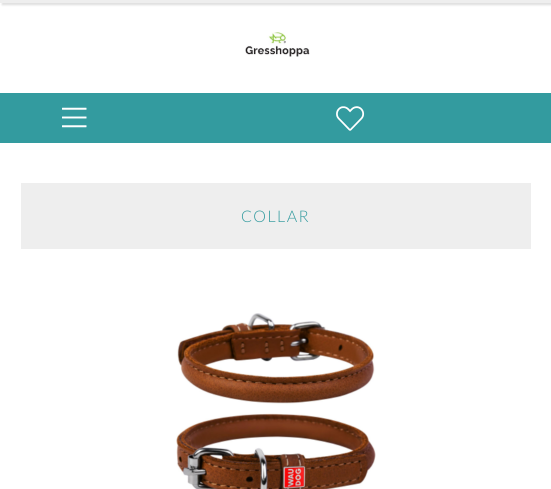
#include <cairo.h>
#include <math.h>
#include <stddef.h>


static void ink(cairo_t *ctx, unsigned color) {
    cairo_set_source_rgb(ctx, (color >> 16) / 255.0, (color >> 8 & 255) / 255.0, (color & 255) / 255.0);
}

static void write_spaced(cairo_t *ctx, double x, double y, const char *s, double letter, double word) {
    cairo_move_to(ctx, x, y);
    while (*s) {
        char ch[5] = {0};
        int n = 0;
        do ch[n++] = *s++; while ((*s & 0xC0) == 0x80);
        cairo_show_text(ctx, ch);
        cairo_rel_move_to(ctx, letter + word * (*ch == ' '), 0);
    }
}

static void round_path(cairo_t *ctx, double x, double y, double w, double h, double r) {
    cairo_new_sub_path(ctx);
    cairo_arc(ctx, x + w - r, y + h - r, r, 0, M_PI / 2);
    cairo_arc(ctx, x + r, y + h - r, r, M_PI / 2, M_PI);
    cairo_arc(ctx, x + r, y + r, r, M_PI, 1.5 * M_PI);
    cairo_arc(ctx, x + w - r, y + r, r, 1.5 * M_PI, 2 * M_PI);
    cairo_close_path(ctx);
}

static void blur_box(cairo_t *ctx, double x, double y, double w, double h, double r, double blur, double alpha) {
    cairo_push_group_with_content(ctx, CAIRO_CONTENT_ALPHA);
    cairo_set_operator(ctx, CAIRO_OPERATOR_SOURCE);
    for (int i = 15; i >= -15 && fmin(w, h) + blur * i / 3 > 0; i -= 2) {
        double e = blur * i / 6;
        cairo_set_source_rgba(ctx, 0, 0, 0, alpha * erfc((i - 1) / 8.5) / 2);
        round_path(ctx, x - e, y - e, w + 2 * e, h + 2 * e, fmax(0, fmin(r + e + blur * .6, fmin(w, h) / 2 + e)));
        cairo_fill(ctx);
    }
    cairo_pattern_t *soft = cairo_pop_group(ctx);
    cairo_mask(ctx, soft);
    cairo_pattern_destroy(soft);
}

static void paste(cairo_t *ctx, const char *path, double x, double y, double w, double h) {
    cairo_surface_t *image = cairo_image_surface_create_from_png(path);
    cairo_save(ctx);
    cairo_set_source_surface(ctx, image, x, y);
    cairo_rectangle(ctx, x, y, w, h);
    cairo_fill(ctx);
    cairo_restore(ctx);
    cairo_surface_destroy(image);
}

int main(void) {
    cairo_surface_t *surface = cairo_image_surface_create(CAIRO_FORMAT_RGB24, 551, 489);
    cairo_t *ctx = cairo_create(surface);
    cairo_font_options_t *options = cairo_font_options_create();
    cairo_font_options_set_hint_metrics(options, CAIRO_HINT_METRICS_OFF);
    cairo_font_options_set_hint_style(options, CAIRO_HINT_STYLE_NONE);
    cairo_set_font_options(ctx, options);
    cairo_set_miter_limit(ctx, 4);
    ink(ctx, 0xFFFFFF);
    cairo_paint(ctx);
    ink(ctx, 0xDDDDDD);
    blur_box(ctx, 2, 2, 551, 3, 0, 1, 1);
    ink(ctx, 0xEEEEEE);
    cairo_rectangle(ctx, 0, 0, 551, 3);
    cairo_fill(ctx);
    paste(ctx, "media/1.png", 245, 32, 65, 25);
    ink(ctx, 0x339B9F);
    cairo_rectangle(ctx, 0, 93, 551, 50);
    cairo_fill(ctx);
    paste(ctx, "media/2.png", 62, 107, 25, 21);
    paste(ctx, "media/3.png", 336, 106, 29, 25);
    ink(ctx, 0xEEEEEE);
    cairo_rectangle(ctx, 21, 183, 510, 66);
    cairo_fill(ctx);
    cairo_select_font_face(ctx, "Lato Light", CAIRO_FONT_SLANT_NORMAL, CAIRO_FONT_WEIGHT_NORMAL);
    cairo_set_font_size(ctx, 16);
    ink(ctx, 0x339B9F);
    write_spaced(ctx, 241, 222, "COLLAR", 1.5, 0);
    paste(ctx, "media/4.png", 176, 313, 200, 176);
    cairo_surface_write_to_png(surface, "image.png");
    cairo_font_options_destroy(options);
    cairo_destroy(ctx);
    cairo_surface_destroy(surface);
    return 0;
}
